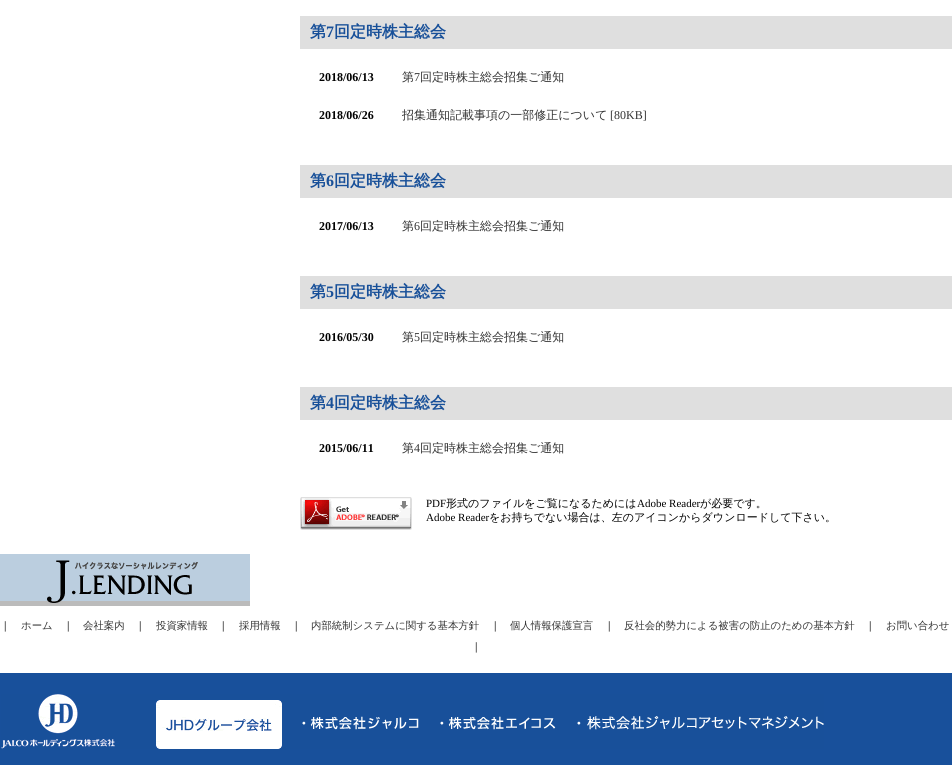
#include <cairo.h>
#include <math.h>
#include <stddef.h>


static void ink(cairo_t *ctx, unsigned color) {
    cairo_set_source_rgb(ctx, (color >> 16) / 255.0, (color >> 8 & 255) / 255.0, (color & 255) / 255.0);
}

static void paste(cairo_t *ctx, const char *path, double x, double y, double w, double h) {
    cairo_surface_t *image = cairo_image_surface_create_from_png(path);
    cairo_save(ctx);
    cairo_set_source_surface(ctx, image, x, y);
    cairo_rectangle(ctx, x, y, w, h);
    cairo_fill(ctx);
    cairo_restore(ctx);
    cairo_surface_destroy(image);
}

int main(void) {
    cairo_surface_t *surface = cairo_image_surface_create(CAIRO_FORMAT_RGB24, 952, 775);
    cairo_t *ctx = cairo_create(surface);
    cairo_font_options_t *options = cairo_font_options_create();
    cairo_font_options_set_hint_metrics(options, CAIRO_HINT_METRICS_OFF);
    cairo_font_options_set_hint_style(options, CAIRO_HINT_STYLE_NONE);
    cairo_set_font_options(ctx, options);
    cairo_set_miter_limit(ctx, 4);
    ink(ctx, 0xFFFFFF);
    cairo_paint(ctx);
    ink(ctx, 0xDFDFDF);
    cairo_rectangle(ctx, 300, 16, 652, 33);
    cairo_fill(ctx);
    cairo_select_font_face(ctx, "WenQuanYi Zen Hei", CAIRO_FONT_SLANT_NORMAL, CAIRO_FONT_WEIGHT_BOLD);
    cairo_set_font_size(ctx, 16);
    ink(ctx, 0x185099);
    cairo_move_to(ctx, 310, 37);
    cairo_show_text(ctx, "第");
    cairo_select_font_face(ctx, "Liberation Serif", CAIRO_FONT_SLANT_NORMAL, CAIRO_FONT_WEIGHT_BOLD);
    cairo_move_to(ctx, 326, 37);
    cairo_show_text(ctx, "7");
    cairo_select_font_face(ctx, "WenQuanYi Zen Hei", CAIRO_FONT_SLANT_NORMAL, CAIRO_FONT_WEIGHT_BOLD);
    cairo_move_to(ctx, 334, 37);
    cairo_show_text(ctx, "回定時株主総会");
    cairo_select_font_face(ctx, "Liberation Serif", CAIRO_FONT_SLANT_NORMAL, CAIRO_FONT_WEIGHT_BOLD);
    cairo_set_font_size(ctx, 12);
    ink(ctx, 0x000000);
    cairo_move_to(ctx, 319, 81);
    cairo_show_text(ctx, "2018/06/13");
    cairo_select_font_face(ctx, "WenQuanYi Zen Hei Medium", CAIRO_FONT_SLANT_NORMAL, CAIRO_FONT_WEIGHT_NORMAL);
    ink(ctx, 0x333333);
    cairo_move_to(ctx, 402, 81);
    cairo_show_text(ctx, "第");
    cairo_select_font_face(ctx, "Liberation Serif", CAIRO_FONT_SLANT_NORMAL, CAIRO_FONT_WEIGHT_NORMAL);
    cairo_move_to(ctx, 414, 81);
    cairo_show_text(ctx, "7");
    cairo_select_font_face(ctx, "WenQuanYi Zen Hei Medium", CAIRO_FONT_SLANT_NORMAL, CAIRO_FONT_WEIGHT_NORMAL);
    cairo_move_to(ctx, 420, 81);
    cairo_show_text(ctx, "回定時株主総会招集ご通知");
    cairo_select_font_face(ctx, "Liberation Serif", CAIRO_FONT_SLANT_NORMAL, CAIRO_FONT_WEIGHT_BOLD);
    ink(ctx, 0x000000);
    cairo_move_to(ctx, 319, 119);
    cairo_show_text(ctx, "2018/06/26");
    cairo_select_font_face(ctx, "WenQuanYi Zen Hei Medium", CAIRO_FONT_SLANT_NORMAL, CAIRO_FONT_WEIGHT_NORMAL);
    ink(ctx, 0x333333);
    cairo_move_to(ctx, 402, 119);
    cairo_show_text(ctx, "招集通知記載事項の一部修正について");
    cairo_select_font_face(ctx, "Liberation Serif", CAIRO_FONT_SLANT_NORMAL, CAIRO_FONT_WEIGHT_NORMAL);
    cairo_move_to(ctx, 610, 119);
    cairo_show_text(ctx, "[80KB]");
    ink(ctx, 0xDFDFDF);
    cairo_rectangle(ctx, 300, 165, 652, 33);
    cairo_fill(ctx);
    cairo_select_font_face(ctx, "WenQuanYi Zen Hei", CAIRO_FONT_SLANT_NORMAL, CAIRO_FONT_WEIGHT_BOLD);
    cairo_set_font_size(ctx, 16);
    ink(ctx, 0x185099);
    cairo_move_to(ctx, 310, 186);
    cairo_show_text(ctx, "第");
    cairo_select_font_face(ctx, "Liberation Serif", CAIRO_FONT_SLANT_NORMAL, CAIRO_FONT_WEIGHT_BOLD);
    cairo_move_to(ctx, 326, 186);
    cairo_show_text(ctx, "6");
    cairo_select_font_face(ctx, "WenQuanYi Zen Hei", CAIRO_FONT_SLANT_NORMAL, CAIRO_FONT_WEIGHT_BOLD);
    cairo_move_to(ctx, 334, 186);
    cairo_show_text(ctx, "回定時株主総会");
    cairo_select_font_face(ctx, "Liberation Serif", CAIRO_FONT_SLANT_NORMAL, CAIRO_FONT_WEIGHT_BOLD);
    cairo_set_font_size(ctx, 12);
    ink(ctx, 0x000000);
    cairo_move_to(ctx, 319, 230);
    cairo_show_text(ctx, "2017/06/13");
    cairo_select_font_face(ctx, "WenQuanYi Zen Hei Medium", CAIRO_FONT_SLANT_NORMAL, CAIRO_FONT_WEIGHT_NORMAL);
    ink(ctx, 0x333333);
    cairo_move_to(ctx, 402, 230);
    cairo_show_text(ctx, "第");
    cairo_select_font_face(ctx, "Liberation Serif", CAIRO_FONT_SLANT_NORMAL, CAIRO_FONT_WEIGHT_NORMAL);
    cairo_move_to(ctx, 414, 230);
    cairo_show_text(ctx, "6");
    cairo_select_font_face(ctx, "WenQuanYi Zen Hei Medium", CAIRO_FONT_SLANT_NORMAL, CAIRO_FONT_WEIGHT_NORMAL);
    cairo_move_to(ctx, 420, 230);
    cairo_show_text(ctx, "回定時株主総会招集ご通知");
    ink(ctx, 0xDFDFDF);
    cairo_rectangle(ctx, 300, 276, 652, 33);
    cairo_fill(ctx);
    cairo_select_font_face(ctx, "WenQuanYi Zen Hei", CAIRO_FONT_SLANT_NORMAL, CAIRO_FONT_WEIGHT_BOLD);
    cairo_set_font_size(ctx, 16);
    ink(ctx, 0x185099);
    cairo_move_to(ctx, 310, 297);
    cairo_show_text(ctx, "第");
    cairo_select_font_face(ctx, "Liberation Serif", CAIRO_FONT_SLANT_NORMAL, CAIRO_FONT_WEIGHT_BOLD);
    cairo_move_to(ctx, 326, 297);
    cairo_show_text(ctx, "5");
    cairo_select_font_face(ctx, "WenQuanYi Zen Hei", CAIRO_FONT_SLANT_NORMAL, CAIRO_FONT_WEIGHT_BOLD);
    cairo_move_to(ctx, 334, 297);
    cairo_show_text(ctx, "回定時株主総会");
    cairo_select_font_face(ctx, "Liberation Serif", CAIRO_FONT_SLANT_NORMAL, CAIRO_FONT_WEIGHT_BOLD);
    cairo_set_font_size(ctx, 12);
    ink(ctx, 0x000000);
    cairo_move_to(ctx, 319, 341);
    cairo_show_text(ctx, "2016/05/30");
    cairo_select_font_face(ctx, "WenQuanYi Zen Hei Medium", CAIRO_FONT_SLANT_NORMAL, CAIRO_FONT_WEIGHT_NORMAL);
    ink(ctx, 0x333333);
    cairo_move_to(ctx, 402, 341);
    cairo_show_text(ctx, "第");
    cairo_select_font_face(ctx, "Liberation Serif", CAIRO_FONT_SLANT_NORMAL, CAIRO_FONT_WEIGHT_NORMAL);
    cairo_move_to(ctx, 414, 341);
    cairo_show_text(ctx, "5");
    cairo_select_font_face(ctx, "WenQuanYi Zen Hei Medium", CAIRO_FONT_SLANT_NORMAL, CAIRO_FONT_WEIGHT_NORMAL);
    cairo_move_to(ctx, 420, 341);
    cairo_show_text(ctx, "回定時株主総会招集ご通知");
    ink(ctx, 0xDFDFDF);
    cairo_rectangle(ctx, 300, 387, 652, 33);
    cairo_fill(ctx);
    cairo_select_font_face(ctx, "WenQuanYi Zen Hei", CAIRO_FONT_SLANT_NORMAL, CAIRO_FONT_WEIGHT_BOLD);
    cairo_set_font_size(ctx, 16);
    ink(ctx, 0x185099);
    cairo_move_to(ctx, 310, 408);
    cairo_show_text(ctx, "第");
    cairo_select_font_face(ctx, "Liberation Serif", CAIRO_FONT_SLANT_NORMAL, CAIRO_FONT_WEIGHT_BOLD);
    cairo_move_to(ctx, 326, 408);
    cairo_show_text(ctx, "4");
    cairo_select_font_face(ctx, "WenQuanYi Zen Hei", CAIRO_FONT_SLANT_NORMAL, CAIRO_FONT_WEIGHT_BOLD);
    cairo_move_to(ctx, 334, 408);
    cairo_show_text(ctx, "回定時株主総会");
    cairo_select_font_face(ctx, "Liberation Serif", CAIRO_FONT_SLANT_NORMAL, CAIRO_FONT_WEIGHT_BOLD);
    cairo_set_font_size(ctx, 12);
    ink(ctx, 0x000000);
    cairo_move_to(ctx, 319, 452);
    cairo_show_text(ctx, "2015/06/11");
    cairo_select_font_face(ctx, "WenQuanYi Zen Hei Medium", CAIRO_FONT_SLANT_NORMAL, CAIRO_FONT_WEIGHT_NORMAL);
    ink(ctx, 0x333333);
    cairo_move_to(ctx, 402, 452);
    cairo_show_text(ctx, "第");
    cairo_select_font_face(ctx, "Liberation Serif", CAIRO_FONT_SLANT_NORMAL, CAIRO_FONT_WEIGHT_NORMAL);
    cairo_move_to(ctx, 414, 452);
    cairo_show_text(ctx, "4");
    cairo_select_font_face(ctx, "WenQuanYi Zen Hei Medium", CAIRO_FONT_SLANT_NORMAL, CAIRO_FONT_WEIGHT_NORMAL);
    cairo_move_to(ctx, 420, 452);
    cairo_show_text(ctx, "回定時株主総会招集ご通知");
    paste(ctx, "media/1.png", 300, 497, 112, 33);
    cairo_select_font_face(ctx, "Liberation Serif", CAIRO_FONT_SLANT_NORMAL, CAIRO_FONT_WEIGHT_NORMAL);
    cairo_set_font_size(ctx, 11);
    ink(ctx, 0x000000);
    cairo_move_to(ctx, 426, 507);
    cairo_show_text(ctx, "PDF");
    cairo_select_font_face(ctx, "WenQuanYi Zen Hei Medium", CAIRO_FONT_SLANT_NORMAL, CAIRO_FONT_WEIGHT_NORMAL);
    cairo_move_to(ctx, 446, 507);
    cairo_show_text(ctx, "形式のファイルをご覧になるためには");
    cairo_select_font_face(ctx, "Liberation Serif", CAIRO_FONT_SLANT_NORMAL, CAIRO_FONT_WEIGHT_NORMAL);
    cairo_move_to(ctx, 637, 507);
    cairo_show_text(ctx, "Adobe Reader");
    cairo_select_font_face(ctx, "WenQuanYi Zen Hei Medium", CAIRO_FONT_SLANT_NORMAL, CAIRO_FONT_WEIGHT_NORMAL);
    cairo_move_to(ctx, 700, 507);
    cairo_show_text(ctx, "が必要です。");
    cairo_select_font_face(ctx, "Liberation Serif", CAIRO_FONT_SLANT_NORMAL, CAIRO_FONT_WEIGHT_NORMAL);
    cairo_move_to(ctx, 426, 521);
    cairo_show_text(ctx, "Adobe Reader");
    cairo_select_font_face(ctx, "WenQuanYi Zen Hei Medium", CAIRO_FONT_SLANT_NORMAL, CAIRO_FONT_WEIGHT_NORMAL);
    cairo_move_to(ctx, 489, 521);
    cairo_show_text(ctx, "をお持ちでない場合は、左のアイコンからダウンロードして下さい。");
    paste(ctx, "media/2.png", 0, 554, 250, 52);
    ink(ctx, 0x18509B);
    cairo_rectangle(ctx, 0, 673, 952, 92);
    cairo_fill(ctx);
    cairo_set_font_size(ctx, 10.4);
    ink(ctx, 0x000000);
    cairo_move_to(ctx, 0, 629);
    cairo_show_text(ctx, "｜");
    ink(ctx, 0x333333);
    cairo_move_to(ctx, 21, 629);
    cairo_show_text(ctx, "ホーム");
    ink(ctx, 0x000000);
    cairo_move_to(ctx, 63, 629);
    cairo_show_text(ctx, "｜");
    ink(ctx, 0x333333);
    cairo_move_to(ctx, 83, 629);
    cairo_show_text(ctx, "会社案内");
    ink(ctx, 0x000000);
    cairo_move_to(ctx, 135, 629);
    cairo_show_text(ctx, "｜");
    ink(ctx, 0x333333);
    cairo_move_to(ctx, 156, 629);
    cairo_show_text(ctx, "投資家情報");
    ink(ctx, 0x000000);
    cairo_move_to(ctx, 218, 629);
    cairo_show_text(ctx, "｜");
    ink(ctx, 0x333333);
    cairo_move_to(ctx, 239, 629);
    cairo_show_text(ctx, "採用情報");
    ink(ctx, 0x000000);
    cairo_move_to(ctx, 291, 629);
    cairo_show_text(ctx, "｜");
    ink(ctx, 0x333333);
    cairo_move_to(ctx, 311, 629);
    cairo_show_text(ctx, "内部統制システムに関する基本方針");
    ink(ctx, 0x000000);
    cairo_move_to(ctx, 490, 629);
    cairo_show_text(ctx, "｜");
    ink(ctx, 0x333333);
    cairo_move_to(ctx, 510, 629);
    cairo_show_text(ctx, "個人情報保護宣言");
    ink(ctx, 0x000000);
    cairo_move_to(ctx, 604, 629);
    cairo_show_text(ctx, "｜");
    ink(ctx, 0x333333);
    cairo_move_to(ctx, 624, 629);
    cairo_show_text(ctx, "反社会的勢力による被害の防止のための基本方針");
    ink(ctx, 0x000000);
    cairo_move_to(ctx, 865, 629);
    cairo_show_text(ctx, "｜");
    ink(ctx, 0x333333);
    cairo_move_to(ctx, 886, 629);
    cairo_show_text(ctx, "お問い合わせ");
    ink(ctx, 0x000000);
    cairo_move_to(ctx, 471, 650);
    cairo_show_text(ctx, "｜");
    paste(ctx, "media/3.png", 1, 694, 823, 55);
    cairo_surface_write_to_png(surface, "image.png");
    cairo_font_options_destroy(options);
    cairo_destroy(ctx);
    cairo_surface_destroy(surface);
    return 0;
}
